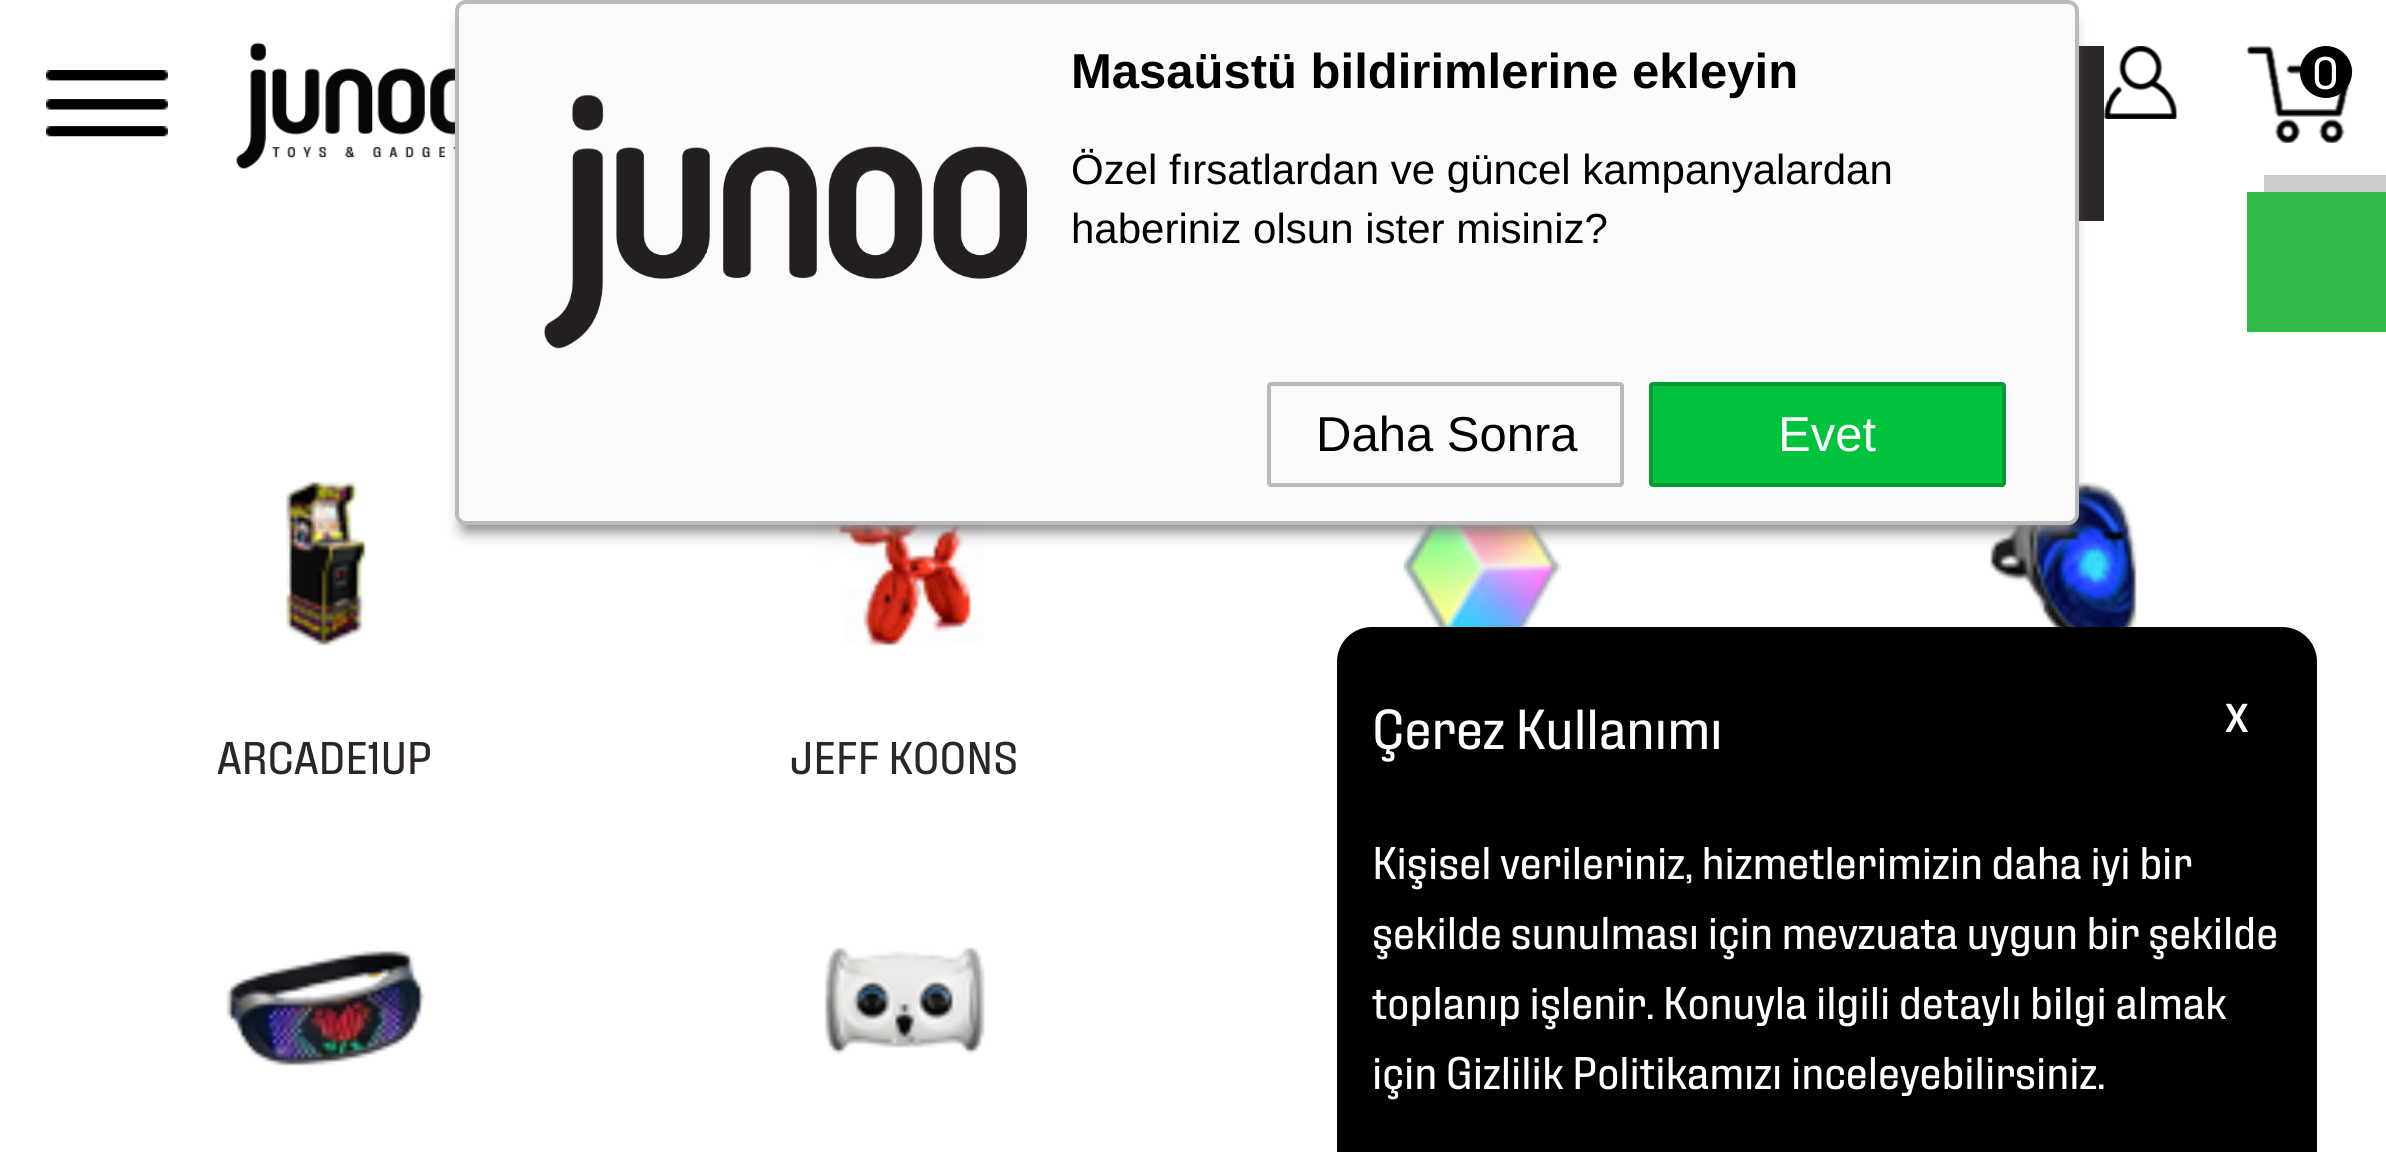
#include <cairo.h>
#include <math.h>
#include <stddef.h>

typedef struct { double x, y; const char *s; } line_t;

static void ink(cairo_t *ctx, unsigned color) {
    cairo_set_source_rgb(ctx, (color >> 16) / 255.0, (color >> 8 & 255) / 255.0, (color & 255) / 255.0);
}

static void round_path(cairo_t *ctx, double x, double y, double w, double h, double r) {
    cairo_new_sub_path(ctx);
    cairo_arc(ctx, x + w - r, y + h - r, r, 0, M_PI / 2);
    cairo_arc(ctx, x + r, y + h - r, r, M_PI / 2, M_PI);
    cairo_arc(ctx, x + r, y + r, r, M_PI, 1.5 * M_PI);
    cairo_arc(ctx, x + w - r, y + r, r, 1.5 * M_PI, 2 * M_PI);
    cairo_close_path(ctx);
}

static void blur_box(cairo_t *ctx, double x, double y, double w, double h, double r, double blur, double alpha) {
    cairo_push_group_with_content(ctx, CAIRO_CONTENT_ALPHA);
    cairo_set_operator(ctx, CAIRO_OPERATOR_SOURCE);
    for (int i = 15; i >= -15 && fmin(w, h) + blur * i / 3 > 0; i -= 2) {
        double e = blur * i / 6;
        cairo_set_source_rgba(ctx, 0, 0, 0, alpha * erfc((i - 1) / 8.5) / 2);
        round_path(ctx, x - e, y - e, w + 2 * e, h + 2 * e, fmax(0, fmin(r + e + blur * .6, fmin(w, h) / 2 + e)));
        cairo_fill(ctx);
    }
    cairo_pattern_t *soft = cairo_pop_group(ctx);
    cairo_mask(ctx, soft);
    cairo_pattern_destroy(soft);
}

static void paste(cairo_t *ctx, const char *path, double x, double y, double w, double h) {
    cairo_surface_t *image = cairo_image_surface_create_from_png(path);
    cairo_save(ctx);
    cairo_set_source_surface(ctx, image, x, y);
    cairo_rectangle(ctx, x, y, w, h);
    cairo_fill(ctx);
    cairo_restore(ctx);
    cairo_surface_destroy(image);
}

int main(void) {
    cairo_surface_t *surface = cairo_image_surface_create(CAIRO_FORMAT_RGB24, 2386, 1152);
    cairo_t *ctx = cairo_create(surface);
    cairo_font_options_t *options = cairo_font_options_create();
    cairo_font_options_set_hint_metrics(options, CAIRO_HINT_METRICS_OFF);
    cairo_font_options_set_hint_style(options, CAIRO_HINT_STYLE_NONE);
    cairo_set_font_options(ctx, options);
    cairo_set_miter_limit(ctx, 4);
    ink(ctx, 0xFFFFFF);
    cairo_paint(ctx);
    paste(ctx, "media/3.png", 236, 42, 219, 127);
    cairo_rectangle(ctx, 1231, 48, 871, 171);
    ink(ctx, 0x2B2728);
    cairo_set_line_width(ctx, 4);
    cairo_stroke(ctx);
    cairo_rectangle(ctx, 2079, 50, 21, 167);
    cairo_fill(ctx);
    paste(ctx, "media/6.png", 1403, 525, 158, 102);
    paste(ctx, "media/7.png", 1990, 482, 147, 145);
    paste(ctx, "media/9.png", 815, 525, 169, 121);
    ink(ctx, 0x888888);
    blur_box(ctx, 462, 21, 1610, 511, 4, 7, 1);
    ink(ctx, 0xFBFBFB);
    round_path(ctx, 457, 2, 1620, 521, 9);
    cairo_fill_preserve(ctx);
    ink(ctx, 0xBABABA);
    cairo_stroke(ctx);
    paste(ctx, "media/1.png", 544, 95, 483, 254);
    cairo_select_font_face(ctx, "Liberation Sans", CAIRO_FONT_SLANT_NORMAL, CAIRO_FONT_WEIGHT_BOLD);
    cairo_set_font_size(ctx, 49);
    ink(ctx, 0x000000);
    cairo_move_to(ctx, 1071, 88);
    cairo_show_text(ctx, "Masaüstü bildirimlerine ekleyin");
    cairo_select_font_face(ctx, "Liberation Sans", CAIRO_FONT_SLANT_NORMAL, CAIRO_FONT_WEIGHT_NORMAL);
    cairo_set_font_size(ctx, 42);
    cairo_move_to(ctx, 1071, 184);
    cairo_show_text(ctx, "Özel fırsatlardan ve güncel kampanyalardan");
    cairo_move_to(ctx, 1071, 243);
    cairo_show_text(ctx, "haberiniz olsun ister misiniz?");
    round_path(ctx, 1269, 384, 353, 101, 2);
    ink(ctx, 0xBABABA);
    cairo_stroke(ctx);
    cairo_set_font_size(ctx, 49);
    ink(ctx, 0x000000);
    cairo_move_to(ctx, 1316, 451);
    cairo_show_text(ctx, "Daha Sonra");
    ink(ctx, 0x00C33D);
    round_path(ctx, 1651, 384, 353, 101, 2);
    cairo_fill_preserve(ctx);
    ink(ctx, 0x059833);
    cairo_stroke(ctx);
    ink(ctx, 0xFFFFFF);
    cairo_move_to(ctx, 1778, 451);
    cairo_show_text(ctx, "Evet");
    paste(ctx, "media/2.png", 46, 70, 122, 67);
    paste(ctx, "media/4.png", 2104, 46, 73, 73);
    paste(ctx, "media/5.png", 2247, 46, 106, 97);
    ink(ctx, 0x000000);
    cairo_arc(ctx, 2326, 72, 26, 0, 2 * M_PI);
    cairo_fill(ctx);
    cairo_select_font_face(ctx, "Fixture", CAIRO_FONT_SLANT_NORMAL, CAIRO_FONT_WEIGHT_NORMAL);
    cairo_set_font_size(ctx, 45.5);
    ink(ctx, 0xFFFFFF);
    cairo_move_to(ctx, 2312, 89);
    cairo_show_text(ctx, "0");
    paste(ctx, "media/8.png", 285, 481, 81, 165);
    ink(ctx, 0x2B2728);
    cairo_move_to(ctx, 217, 774);
    cairo_show_text(ctx, "ARCADE1UP");
    cairo_move_to(ctx, 790, 774);
    cairo_show_text(ctx, "JEFF KOONS");
    paste(ctx, "media/10.png", 226, 950, 199, 116);
    paste(ctx, "media/11.png", 824, 947, 161, 108);
    ink(ctx, 0xCCCCCC);
    cairo_new_path(ctx);
    cairo_move_to(ctx, 2264, 175);
    cairo_line_to(ctx, 2264, 192);
    cairo_line_to(ctx, 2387, 192);
    cairo_line_to(ctx, 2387, 315);
    cairo_line_to(ctx, 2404, 315);
    cairo_line_to(ctx, 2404, 175);
    cairo_close_path(ctx);
    cairo_fill(ctx);
    ink(ctx, 0x30BA45);
    cairo_rectangle(ctx, 2247, 192, 139, 140);
    cairo_fill(ctx);
    ink(ctx, 0x000000);
    cairo_new_path(ctx);
    cairo_move_to(ctx, 1372, 627);
    cairo_line_to(ctx, 2282, 627);
    cairo_curve_to(ctx, 2301.5, 627, 2317, 642.5, 2317, 662);
    cairo_line_to(ctx, 2317, 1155);
    cairo_line_to(ctx, 1337, 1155);
    cairo_line_to(ctx, 1337, 662);
    cairo_curve_to(ctx, 1337, 642.5, 1352.5, 627, 1372, 627);
    cairo_close_path(ctx);
    cairo_fill(ctx);
    cairo_set_font_size(ctx, 56);
    ink(ctx, 0xFFFFFF);
    cairo_move_to(ctx, 1372, 749);
    cairo_show_text(ctx, "Çerez Kullanımı");
    cairo_move_to(ctx, 2225, 732);
    cairo_show_text(ctx, "x");
    cairo_set_font_size(ctx, 45.5);
    {
        static const line_t items[] = {
            {1372, 879, "Kişisel verileriniz, hizmetlerimizin daha iyi bir"},
            {1372, 949, "şekilde sunulması için mevzuata uygun bir şekilde"},
            {1372, 1019, "toplanıp işlenir. Konuyla ilgili detaylı bilgi almak"},
            {1372, 1089, "için Gizlilik Politikamızı inceleyebilirsiniz."},
        };
        for (size_t i = 0; i < sizeof items / sizeof *items; i++) {
            cairo_move_to(ctx, items[i].x, items[i].y);
            cairo_show_text(ctx, items[i].s);
        }
    }
    cairo_surface_write_to_png(surface, "image.png");
    cairo_font_options_destroy(options);
    cairo_destroy(ctx);
    cairo_surface_destroy(surface);
    return 0;
}
